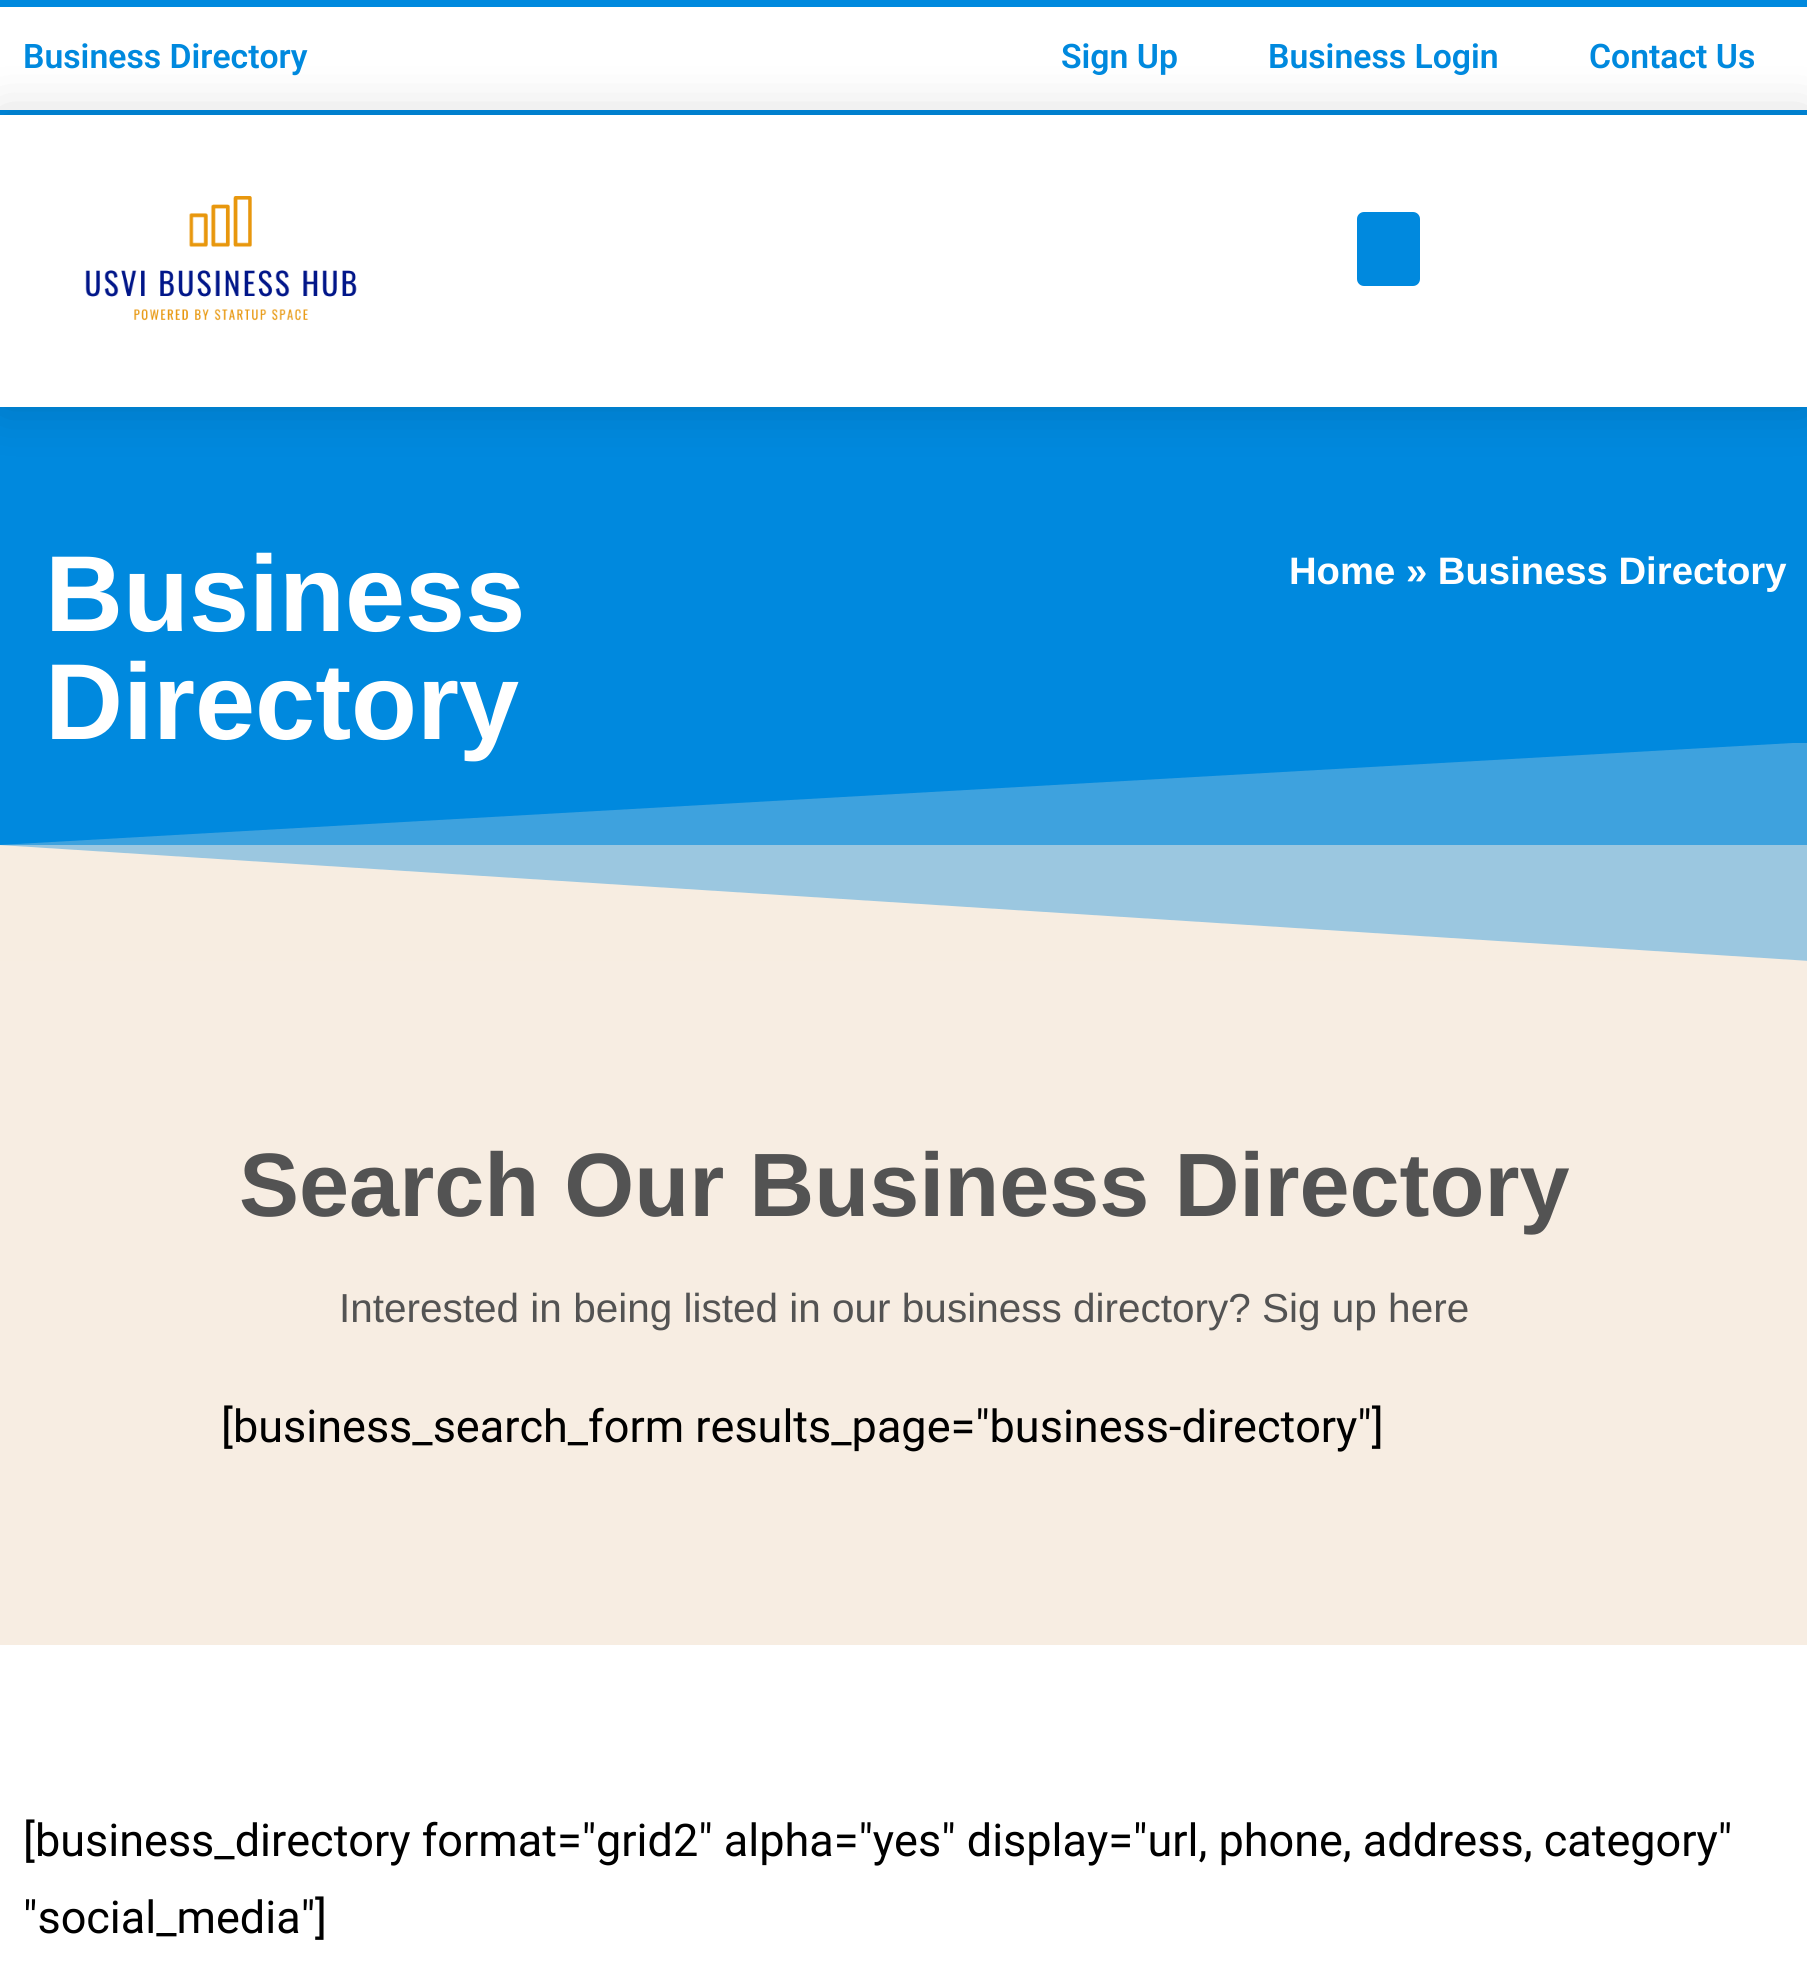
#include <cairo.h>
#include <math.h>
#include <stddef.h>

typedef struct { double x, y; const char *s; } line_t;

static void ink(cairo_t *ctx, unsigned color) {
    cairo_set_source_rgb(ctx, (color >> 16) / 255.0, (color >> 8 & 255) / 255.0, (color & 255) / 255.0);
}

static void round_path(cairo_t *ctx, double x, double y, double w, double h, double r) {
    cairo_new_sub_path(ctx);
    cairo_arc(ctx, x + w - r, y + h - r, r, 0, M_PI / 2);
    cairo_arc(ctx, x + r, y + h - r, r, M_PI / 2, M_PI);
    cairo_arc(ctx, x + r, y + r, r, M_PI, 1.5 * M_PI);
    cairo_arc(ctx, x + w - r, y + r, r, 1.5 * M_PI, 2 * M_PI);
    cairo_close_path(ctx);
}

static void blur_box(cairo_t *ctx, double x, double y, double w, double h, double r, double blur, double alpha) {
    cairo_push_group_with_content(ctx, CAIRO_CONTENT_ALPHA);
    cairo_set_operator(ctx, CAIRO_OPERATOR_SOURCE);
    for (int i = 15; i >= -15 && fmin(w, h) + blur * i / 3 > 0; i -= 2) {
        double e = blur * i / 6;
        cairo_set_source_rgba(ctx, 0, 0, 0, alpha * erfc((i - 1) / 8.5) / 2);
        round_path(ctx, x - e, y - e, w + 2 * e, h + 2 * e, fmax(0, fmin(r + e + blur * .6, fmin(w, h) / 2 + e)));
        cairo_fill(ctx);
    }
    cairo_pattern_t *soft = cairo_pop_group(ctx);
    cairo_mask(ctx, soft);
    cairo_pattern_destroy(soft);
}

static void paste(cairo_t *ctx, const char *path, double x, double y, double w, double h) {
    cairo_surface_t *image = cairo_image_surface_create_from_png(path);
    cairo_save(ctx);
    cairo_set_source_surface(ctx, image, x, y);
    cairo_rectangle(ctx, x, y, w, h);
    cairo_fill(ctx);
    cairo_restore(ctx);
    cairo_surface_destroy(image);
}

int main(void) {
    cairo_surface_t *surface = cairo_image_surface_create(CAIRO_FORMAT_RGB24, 1807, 1980);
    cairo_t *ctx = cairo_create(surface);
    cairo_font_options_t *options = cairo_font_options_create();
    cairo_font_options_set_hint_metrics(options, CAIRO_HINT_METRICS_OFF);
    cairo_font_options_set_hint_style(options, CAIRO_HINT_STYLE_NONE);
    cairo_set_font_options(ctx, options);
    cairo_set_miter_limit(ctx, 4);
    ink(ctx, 0xFFFFFF);
    cairo_paint(ctx);
    ink(ctx, 0x0089DE);
    cairo_rectangle(ctx, 0, 110, 1807, 5);
    cairo_fill(ctx);
    cairo_rectangle(ctx, 0, 407, 1807, 438);
    cairo_fill(ctx);
    ink(ctx, 0x000000);
    blur_box(ctx, 0, 115, 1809, 292, 0, 27, 0.15);
    ink(ctx, 0xFFFFFF);
    cairo_rectangle(ctx, 0, 115, 1807, 292);
    cairo_fill(ctx);
    paste(ctx, "media/1.png", 85, 196, 272, 125);
    ink(ctx, 0x0089DE);
    round_path(ctx, 1357, 212, 63, 74, 7);
    cairo_fill(ctx);
    cairo_rectangle(ctx, 0, 0, 1807, 7);
    cairo_fill(ctx);
    cairo_select_font_face(ctx, "Roboto SemiBold", CAIRO_FONT_SLANT_NORMAL, CAIRO_FONT_WEIGHT_NORMAL);
    cairo_set_font_size(ctx, 33.75);
    {
        static const line_t items[] = {
            {23, 68, "Business Directory"},
            {1061, 68, "Sign Up"},
            {1268, 68, "Business Login"},
            {1589, 68, "Contact Us"},
        };
        for (size_t i = 0; i < sizeof items / sizeof *items; i++) {
            cairo_move_to(ctx, items[i].x, items[i].y);
            cairo_show_text(ctx, items[i].s);
        }
    }
    ink(ctx, 0x7CBBE0);
    cairo_rectangle(ctx, 0, 845, 1807, 116);
    cairo_fill(ctx);
    cairo_select_font_face(ctx, "Liberation Sans", CAIRO_FONT_SLANT_NORMAL, CAIRO_FONT_WEIGHT_BOLD);
    cairo_set_font_size(ctx, 108);
    ink(ctx, 0xFFFFFF);
    cairo_move_to(ctx, 45, 631);
    cairo_show_text(ctx, "Business");
    ink(ctx, 0xF7EDE2);
    cairo_new_path(ctx);
    cairo_move_to(ctx, 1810, 961);
    cairo_line_to(ctx, -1, 961);
    cairo_line_to(ctx, -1, 845);
    cairo_close_path(ctx);
    cairo_fill(ctx);
    cairo_save(ctx);
    cairo_rectangle(ctx, 0, 743, 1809, 220);
    cairo_clip(ctx);
    cairo_set_source_rgba(ctx, 0.969, 0.929, 0.886, 0.25);
    cairo_new_path(ctx);
    cairo_move_to(ctx, -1, 961);
    cairo_line_to(ctx, 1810, 961);
    cairo_line_to(ctx, 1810, 742);
    cairo_line_to(ctx, -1, 845);
    cairo_close_path(ctx);
    cairo_fill(ctx);
    cairo_restore(ctx);
    ink(ctx, 0xFFFFFF);
    cairo_move_to(ctx, 45, 739);
    cairo_show_text(ctx, "Directory");
    cairo_set_font_size(ctx, 38.25);
    cairo_move_to(ctx, 1289, 584);
    cairo_show_text(ctx, "Home » Business Directory");
    ink(ctx, 0xF7EDE2);
    cairo_rectangle(ctx, 0, 961, 1807, 684);
    cairo_fill(ctx);
    cairo_set_font_size(ctx, 90);
    ink(ctx, 0x535353);
    cairo_move_to(ctx, 239, 1216);
    cairo_show_text(ctx, "Search Our Business Directory");
    cairo_select_font_face(ctx, "Liberation Sans", CAIRO_FONT_SLANT_NORMAL, CAIRO_FONT_WEIGHT_NORMAL);
    cairo_set_font_size(ctx, 40.5);
    cairo_move_to(ctx, 339, 1322);
    cairo_show_text(ctx, "Interested in being listed in our business directory? Sig up here");
    cairo_select_font_face(ctx, "Roboto", CAIRO_FONT_SLANT_NORMAL, CAIRO_FONT_WEIGHT_NORMAL);
    cairo_set_font_size(ctx, 45);
    ink(ctx, 0x000000);
    {
        static const line_t items[] = {
            {221, 1442, "[business_search_form results_page=\"business-directory\"]"},
            {23, 1856, "[business_directory format=\"grid2\" alpha=\"yes\" display=\"url, phone, address, category\""},
            {23, 1933, "\"social_media\"]"},
        };
        for (size_t i = 0; i < sizeof items / sizeof *items; i++) {
            cairo_move_to(ctx, items[i].x, items[i].y);
            cairo_show_text(ctx, items[i].s);
        }
    }
    cairo_surface_write_to_png(surface, "image.png");
    cairo_font_options_destroy(options);
    cairo_destroy(ctx);
    cairo_surface_destroy(surface);
    return 0;
}
